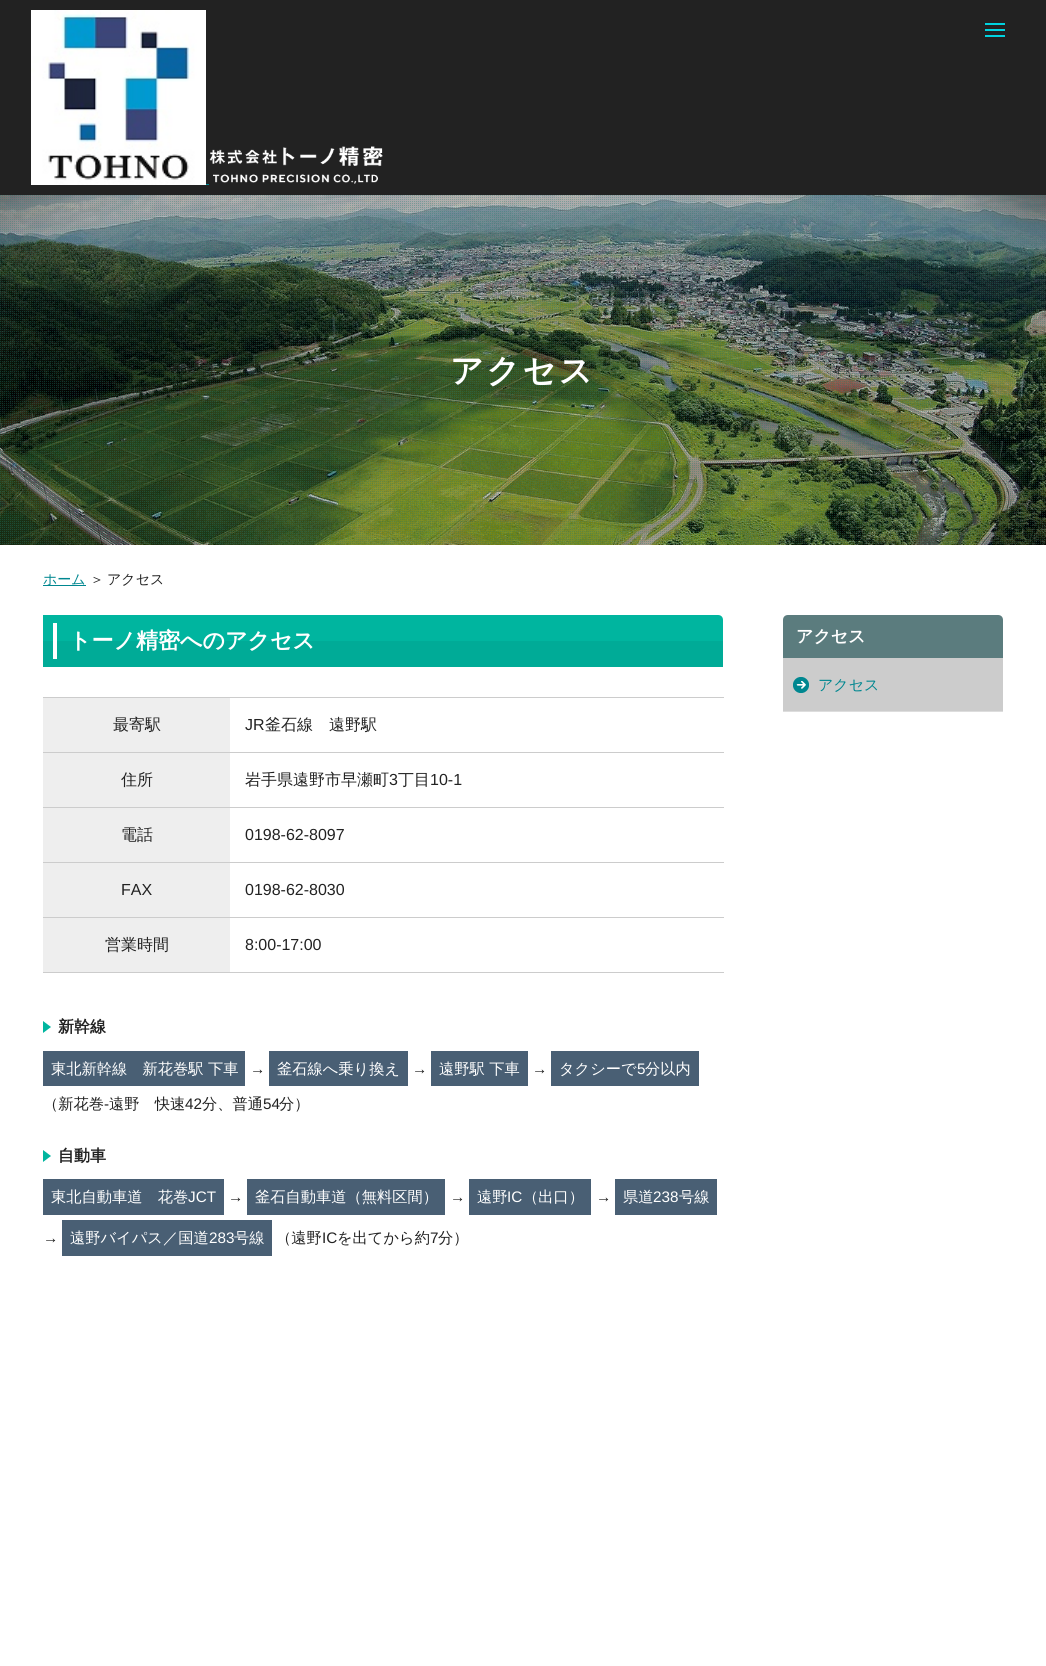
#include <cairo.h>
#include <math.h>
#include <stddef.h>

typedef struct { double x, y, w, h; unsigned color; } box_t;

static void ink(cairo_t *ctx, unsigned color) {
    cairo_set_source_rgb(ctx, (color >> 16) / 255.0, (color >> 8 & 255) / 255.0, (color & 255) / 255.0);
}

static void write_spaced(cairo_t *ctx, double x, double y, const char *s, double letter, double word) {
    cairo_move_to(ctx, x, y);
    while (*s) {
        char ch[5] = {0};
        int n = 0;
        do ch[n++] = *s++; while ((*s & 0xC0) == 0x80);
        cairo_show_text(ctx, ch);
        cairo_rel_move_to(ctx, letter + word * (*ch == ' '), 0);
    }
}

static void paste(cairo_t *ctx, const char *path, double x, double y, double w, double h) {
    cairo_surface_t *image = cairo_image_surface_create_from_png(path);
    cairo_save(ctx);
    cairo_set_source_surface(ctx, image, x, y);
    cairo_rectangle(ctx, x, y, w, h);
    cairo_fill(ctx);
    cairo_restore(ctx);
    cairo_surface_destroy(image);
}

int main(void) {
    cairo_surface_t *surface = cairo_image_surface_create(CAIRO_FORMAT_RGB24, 1046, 1666);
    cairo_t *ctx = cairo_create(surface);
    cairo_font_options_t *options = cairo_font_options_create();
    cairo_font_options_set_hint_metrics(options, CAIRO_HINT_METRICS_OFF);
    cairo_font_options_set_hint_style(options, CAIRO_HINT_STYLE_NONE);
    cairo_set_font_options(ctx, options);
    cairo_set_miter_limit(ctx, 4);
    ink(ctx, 0xFFFFFF);
    cairo_paint(ctx);
    ink(ctx, 0x222222);
    cairo_rectangle(ctx, 0, 0, 1046, 195);
    cairo_fill(ctx);
    paste(ctx, "media/1.png", 31, 10, 175, 175);
    paste(ctx, "media/2.png", 209, 146, 174, 38);
    {
        static const box_t items[] = {
            {206, 184, 3, 1, 0x008790},
            {985, 29, 20, 2, 0x00D3E0},
            {985, 23, 20, 2, 0x00D3E0},
            {985, 35, 20, 2, 0x00D3E0},
        };
        for (size_t i = 0; i < sizeof items / sizeof *items; i++) {
            ink(ctx, items[i].color);
            cairo_rectangle(ctx, items[i].x, items[i].y, items[i].w, items[i].h);
            cairo_fill(ctx);
        }
    }
    paste(ctx, "media/3.png", 0, 195, 1046, 350);
    paste(ctx, "media/4.png", 0, 195, 1046, 350);
    cairo_select_font_face(ctx, "WenQuanYi Zen Hei", CAIRO_FONT_SLANT_NORMAL, CAIRO_FONT_WEIGHT_BOLD);
    cairo_set_font_size(ctx, 33);
    ink(ctx, 0xFFFFFF);
    write_spaced(ctx, 450, 382, "アクセス", 2.5, 0);
    ink(ctx, 0x008790);
    cairo_rectangle(ctx, 43, 585, 43, 1);
    cairo_fill(ctx);
    cairo_select_font_face(ctx, "WenQuanYi Zen Hei Medium", CAIRO_FONT_SLANT_NORMAL, CAIRO_FONT_WEIGHT_NORMAL);
    cairo_set_font_size(ctx, 14);
    cairo_move_to(ctx, 43, 584);
    cairo_show_text(ctx, "ホーム");
    ink(ctx, 0x222222);
    cairo_move_to(ctx, 90, 584);
    cairo_show_text(ctx, "＞");
    cairo_move_to(ctx, 107, 584);
    cairo_show_text(ctx, "アクセス");
    ink(ctx, 0x00B59F);
    cairo_new_path(ctx);
    cairo_move_to(ctx, 43, 615);
    cairo_line_to(ctx, 718, 615);
    cairo_curve_to(ctx, 721, 615, 723, 617, 723, 620);
    cairo_line_to(ctx, 723, 667);
    cairo_line_to(ctx, 43, 667);
    cairo_close_path(ctx);
    cairo_fill(ctx);
    ink(ctx, 0x00AB97);
    cairo_rectangle(ctx, 43, 641, 680, 26);
    cairo_fill(ctx);
    ink(ctx, 0xFFFFFF);
    cairo_rectangle(ctx, 53, 623, 4, 36);
    cairo_fill(ctx);
    cairo_select_font_face(ctx, "WenQuanYi Zen Hei", CAIRO_FONT_SLANT_NORMAL, CAIRO_FONT_WEIGHT_BOLD);
    cairo_set_font_size(ctx, 22);
    cairo_move_to(ctx, 69, 648);
    cairo_show_text(ctx, "トーノ精密へのアクセス");
    ink(ctx, 0xEEEEEE);
    cairo_rectangle(ctx, 43, 698, 187, 54);
    cairo_fill(ctx);
    cairo_select_font_face(ctx, "WenQuanYi Zen Hei Medium", CAIRO_FONT_SLANT_NORMAL, CAIRO_FONT_WEIGHT_NORMAL);
    cairo_set_font_size(ctx, 16);
    ink(ctx, 0x222222);
    cairo_move_to(ctx, 113, 730);
    cairo_show_text(ctx, "最寄駅");
    ink(ctx, 0xCCCCCC);
    cairo_rectangle(ctx, 43, 697, 681, 1);
    cairo_fill(ctx);
    cairo_select_font_face(ctx, "Liberation Sans", CAIRO_FONT_SLANT_NORMAL, CAIRO_FONT_WEIGHT_NORMAL);
    ink(ctx, 0x222222);
    cairo_move_to(ctx, 245, 730);
    cairo_show_text(ctx, "JR");
    cairo_select_font_face(ctx, "WenQuanYi Zen Hei Medium", CAIRO_FONT_SLANT_NORMAL, CAIRO_FONT_WEIGHT_NORMAL);
    cairo_move_to(ctx, 265, 730);
    cairo_show_text(ctx, "釜石線　遠野駅");
    ink(ctx, 0xEEEEEE);
    cairo_rectangle(ctx, 43, 753, 187, 54);
    cairo_fill(ctx);
    ink(ctx, 0x222222);
    cairo_move_to(ctx, 121, 785);
    cairo_show_text(ctx, "住所");
    ink(ctx, 0xCCCCCC);
    cairo_rectangle(ctx, 43, 752, 681, 1);
    cairo_fill(ctx);
    ink(ctx, 0x222222);
    cairo_move_to(ctx, 245, 785);
    cairo_show_text(ctx, "岩手県遠野市早瀬町");
    cairo_select_font_face(ctx, "Liberation Sans", CAIRO_FONT_SLANT_NORMAL, CAIRO_FONT_WEIGHT_NORMAL);
    cairo_move_to(ctx, 389, 785);
    cairo_show_text(ctx, "3");
    cairo_select_font_face(ctx, "WenQuanYi Zen Hei Medium", CAIRO_FONT_SLANT_NORMAL, CAIRO_FONT_WEIGHT_NORMAL);
    cairo_move_to(ctx, 398, 785);
    cairo_show_text(ctx, "丁目");
    cairo_select_font_face(ctx, "Liberation Sans", CAIRO_FONT_SLANT_NORMAL, CAIRO_FONT_WEIGHT_NORMAL);
    cairo_move_to(ctx, 430, 785);
    cairo_show_text(ctx, "10-1");
    ink(ctx, 0xEEEEEE);
    cairo_rectangle(ctx, 43, 808, 187, 54);
    cairo_fill(ctx);
    cairo_select_font_face(ctx, "WenQuanYi Zen Hei Medium", CAIRO_FONT_SLANT_NORMAL, CAIRO_FONT_WEIGHT_NORMAL);
    ink(ctx, 0x222222);
    cairo_move_to(ctx, 121, 840);
    cairo_show_text(ctx, "電話");
    ink(ctx, 0xCCCCCC);
    cairo_rectangle(ctx, 43, 807, 681, 1);
    cairo_fill(ctx);
    cairo_select_font_face(ctx, "Liberation Sans", CAIRO_FONT_SLANT_NORMAL, CAIRO_FONT_WEIGHT_NORMAL);
    ink(ctx, 0x222222);
    cairo_move_to(ctx, 245, 840);
    cairo_show_text(ctx, "0198-62-8097");
    ink(ctx, 0xEEEEEE);
    cairo_rectangle(ctx, 43, 863, 187, 54);
    cairo_fill(ctx);
    ink(ctx, 0x222222);
    cairo_move_to(ctx, 121, 895);
    cairo_show_text(ctx, "FAX");
    ink(ctx, 0xCCCCCC);
    cairo_rectangle(ctx, 43, 862, 681, 1);
    cairo_fill(ctx);
    ink(ctx, 0x222222);
    cairo_move_to(ctx, 245, 895);
    cairo_show_text(ctx, "0198-62-8030");
    ink(ctx, 0xEEEEEE);
    cairo_rectangle(ctx, 43, 918, 187, 54);
    cairo_fill(ctx);
    cairo_select_font_face(ctx, "WenQuanYi Zen Hei Medium", CAIRO_FONT_SLANT_NORMAL, CAIRO_FONT_WEIGHT_NORMAL);
    ink(ctx, 0x222222);
    cairo_move_to(ctx, 105, 950);
    cairo_show_text(ctx, "営業時間");
    ink(ctx, 0xCCCCCC);
    cairo_rectangle(ctx, 43, 917, 681, 1);
    cairo_fill(ctx);
    cairo_rectangle(ctx, 43, 972, 681, 1);
    cairo_fill(ctx);
    cairo_select_font_face(ctx, "Liberation Sans", CAIRO_FONT_SLANT_NORMAL, CAIRO_FONT_WEIGHT_NORMAL);
    ink(ctx, 0x222222);
    cairo_move_to(ctx, 245, 950);
    cairo_show_text(ctx, "8:00-17:00");
    ink(ctx, 0x00B59F);
    cairo_new_path(ctx);
    cairo_move_to(ctx, 43, 1033);
    cairo_line_to(ctx, 43, 1021);
    cairo_line_to(ctx, 51, 1027);
    cairo_close_path(ctx);
    cairo_fill(ctx);
    cairo_select_font_face(ctx, "WenQuanYi Zen Hei", CAIRO_FONT_SLANT_NORMAL, CAIRO_FONT_WEIGHT_BOLD);
    ink(ctx, 0x222222);
    cairo_move_to(ctx, 58, 1032);
    cairo_show_text(ctx, "新幹線");
    ink(ctx, 0x495F74);
    cairo_rectangle(ctx, 43, 1051, 202, 35);
    cairo_fill(ctx);
    cairo_select_font_face(ctx, "WenQuanYi Zen Hei Medium", CAIRO_FONT_SLANT_NORMAL, CAIRO_FONT_WEIGHT_NORMAL);
    cairo_set_font_size(ctx, 15.25);
    ink(ctx, 0xFFFFFF);
    cairo_move_to(ctx, 51, 1074);
    cairo_show_text(ctx, "東北新幹線　新花巻駅 下車");
    cairo_select_font_face(ctx, "Liberation Sans", CAIRO_FONT_SLANT_NORMAL, CAIRO_FONT_WEIGHT_NORMAL);
    ink(ctx, 0x222222);
    cairo_move_to(ctx, 250, 1074);
    cairo_show_text(ctx, "→");
    ink(ctx, 0x495F74);
    cairo_rectangle(ctx, 269, 1051, 139, 35);
    cairo_fill(ctx);
    cairo_select_font_face(ctx, "WenQuanYi Zen Hei Medium", CAIRO_FONT_SLANT_NORMAL, CAIRO_FONT_WEIGHT_NORMAL);
    ink(ctx, 0xFFFFFF);
    cairo_move_to(ctx, 277, 1074);
    cairo_show_text(ctx, "釜石線へ乗り換え");
    cairo_select_font_face(ctx, "Liberation Sans", CAIRO_FONT_SLANT_NORMAL, CAIRO_FONT_WEIGHT_NORMAL);
    ink(ctx, 0x222222);
    cairo_move_to(ctx, 412, 1074);
    cairo_show_text(ctx, "→");
    ink(ctx, 0x495F74);
    cairo_rectangle(ctx, 431, 1051, 97, 35);
    cairo_fill(ctx);
    cairo_select_font_face(ctx, "WenQuanYi Zen Hei Medium", CAIRO_FONT_SLANT_NORMAL, CAIRO_FONT_WEIGHT_NORMAL);
    ink(ctx, 0xFFFFFF);
    cairo_move_to(ctx, 439, 1074);
    cairo_show_text(ctx, "遠野駅 下車");
    cairo_select_font_face(ctx, "Liberation Sans", CAIRO_FONT_SLANT_NORMAL, CAIRO_FONT_WEIGHT_NORMAL);
    ink(ctx, 0x222222);
    cairo_move_to(ctx, 532, 1074);
    cairo_show_text(ctx, "→");
    ink(ctx, 0x495F74);
    cairo_rectangle(ctx, 551, 1051, 148, 35);
    cairo_fill(ctx);
    cairo_select_font_face(ctx, "WenQuanYi Zen Hei Medium", CAIRO_FONT_SLANT_NORMAL, CAIRO_FONT_WEIGHT_NORMAL);
    ink(ctx, 0xFFFFFF);
    cairo_move_to(ctx, 559, 1074);
    cairo_show_text(ctx, "タクシーで");
    cairo_select_font_face(ctx, "Liberation Sans", CAIRO_FONT_SLANT_NORMAL, CAIRO_FONT_WEIGHT_NORMAL);
    cairo_move_to(ctx, 637, 1074);
    cairo_show_text(ctx, "5");
    cairo_select_font_face(ctx, "WenQuanYi Zen Hei Medium", CAIRO_FONT_SLANT_NORMAL, CAIRO_FONT_WEIGHT_NORMAL);
    cairo_move_to(ctx, 645, 1074);
    cairo_show_text(ctx, "分以内");
    ink(ctx, 0x222222);
    cairo_move_to(ctx, 43, 1109);
    cairo_show_text(ctx, "（新花巻");
    cairo_select_font_face(ctx, "Liberation Sans", CAIRO_FONT_SLANT_NORMAL, CAIRO_FONT_WEIGHT_NORMAL);
    cairo_move_to(ctx, 104, 1109);
    cairo_show_text(ctx, "-");
    cairo_select_font_face(ctx, "WenQuanYi Zen Hei Medium", CAIRO_FONT_SLANT_NORMAL, CAIRO_FONT_WEIGHT_NORMAL);
    cairo_move_to(ctx, 109, 1109);
    cairo_show_text(ctx, "遠野　快速");
    cairo_select_font_face(ctx, "Liberation Sans", CAIRO_FONT_SLANT_NORMAL, CAIRO_FONT_WEIGHT_NORMAL);
    cairo_move_to(ctx, 185, 1109);
    cairo_show_text(ctx, "42");
    cairo_select_font_face(ctx, "WenQuanYi Zen Hei Medium", CAIRO_FONT_SLANT_NORMAL, CAIRO_FONT_WEIGHT_NORMAL);
    cairo_move_to(ctx, 202, 1109);
    cairo_show_text(ctx, "分、普通");
    cairo_select_font_face(ctx, "Liberation Sans", CAIRO_FONT_SLANT_NORMAL, CAIRO_FONT_WEIGHT_NORMAL);
    cairo_move_to(ctx, 263, 1109);
    cairo_show_text(ctx, "54");
    cairo_select_font_face(ctx, "WenQuanYi Zen Hei Medium", CAIRO_FONT_SLANT_NORMAL, CAIRO_FONT_WEIGHT_NORMAL);
    cairo_move_to(ctx, 279, 1109);
    cairo_show_text(ctx, "分）");
    ink(ctx, 0x00B59F);
    cairo_new_path(ctx);
    cairo_move_to(ctx, 43, 1162);
    cairo_line_to(ctx, 43, 1150);
    cairo_line_to(ctx, 51, 1156);
    cairo_close_path(ctx);
    cairo_fill(ctx);
    cairo_select_font_face(ctx, "WenQuanYi Zen Hei", CAIRO_FONT_SLANT_NORMAL, CAIRO_FONT_WEIGHT_BOLD);
    cairo_set_font_size(ctx, 16);
    ink(ctx, 0x222222);
    cairo_move_to(ctx, 58, 1161);
    cairo_show_text(ctx, "自動車");
    ink(ctx, 0x495F74);
    cairo_rectangle(ctx, 43, 1179, 181, 36);
    cairo_fill(ctx);
    cairo_select_font_face(ctx, "WenQuanYi Zen Hei Medium", CAIRO_FONT_SLANT_NORMAL, CAIRO_FONT_WEIGHT_NORMAL);
    cairo_set_font_size(ctx, 15.25);
    ink(ctx, 0xFFFFFF);
    cairo_move_to(ctx, 51, 1202);
    cairo_show_text(ctx, "東北自動車道　花巻");
    cairo_select_font_face(ctx, "Liberation Sans", CAIRO_FONT_SLANT_NORMAL, CAIRO_FONT_WEIGHT_NORMAL);
    cairo_move_to(ctx, 188, 1202);
    cairo_show_text(ctx, "JCT");
    ink(ctx, 0x222222);
    cairo_move_to(ctx, 228, 1202);
    cairo_show_text(ctx, "→");
    ink(ctx, 0x495F74);
    cairo_rectangle(ctx, 247, 1179, 198, 36);
    cairo_fill(ctx);
    cairo_select_font_face(ctx, "WenQuanYi Zen Hei Medium", CAIRO_FONT_SLANT_NORMAL, CAIRO_FONT_WEIGHT_NORMAL);
    ink(ctx, 0xFFFFFF);
    cairo_move_to(ctx, 255, 1202);
    cairo_show_text(ctx, "釜石自動車道（無料区間）");
    cairo_select_font_face(ctx, "Liberation Sans", CAIRO_FONT_SLANT_NORMAL, CAIRO_FONT_WEIGHT_NORMAL);
    ink(ctx, 0x222222);
    cairo_move_to(ctx, 450, 1202);
    cairo_show_text(ctx, "→");
    ink(ctx, 0x495F74);
    cairo_rectangle(ctx, 469, 1179, 122, 36);
    cairo_fill(ctx);
    cairo_select_font_face(ctx, "WenQuanYi Zen Hei Medium", CAIRO_FONT_SLANT_NORMAL, CAIRO_FONT_WEIGHT_NORMAL);
    ink(ctx, 0xFFFFFF);
    cairo_move_to(ctx, 477, 1202);
    cairo_show_text(ctx, "遠野");
    cairo_select_font_face(ctx, "Liberation Sans", CAIRO_FONT_SLANT_NORMAL, CAIRO_FONT_WEIGHT_NORMAL);
    cairo_move_to(ctx, 507, 1202);
    cairo_show_text(ctx, "IC");
    cairo_select_font_face(ctx, "WenQuanYi Zen Hei Medium", CAIRO_FONT_SLANT_NORMAL, CAIRO_FONT_WEIGHT_NORMAL);
    cairo_move_to(ctx, 523, 1202);
    cairo_show_text(ctx, "（出口）");
    cairo_select_font_face(ctx, "Liberation Sans", CAIRO_FONT_SLANT_NORMAL, CAIRO_FONT_WEIGHT_NORMAL);
    ink(ctx, 0x222222);
    cairo_move_to(ctx, 596, 1202);
    cairo_show_text(ctx, "→");
    ink(ctx, 0x495F74);
    cairo_rectangle(ctx, 615, 1179, 102, 36);
    cairo_fill(ctx);
    cairo_select_font_face(ctx, "WenQuanYi Zen Hei Medium", CAIRO_FONT_SLANT_NORMAL, CAIRO_FONT_WEIGHT_NORMAL);
    ink(ctx, 0xFFFFFF);
    cairo_move_to(ctx, 623, 1202);
    cairo_show_text(ctx, "県道");
    cairo_select_font_face(ctx, "Liberation Sans", CAIRO_FONT_SLANT_NORMAL, CAIRO_FONT_WEIGHT_NORMAL);
    cairo_move_to(ctx, 653, 1202);
    cairo_show_text(ctx, "238");
    cairo_select_font_face(ctx, "WenQuanYi Zen Hei Medium", CAIRO_FONT_SLANT_NORMAL, CAIRO_FONT_WEIGHT_NORMAL);
    cairo_move_to(ctx, 679, 1202);
    cairo_show_text(ctx, "号線");
    cairo_select_font_face(ctx, "Liberation Sans", CAIRO_FONT_SLANT_NORMAL, CAIRO_FONT_WEIGHT_NORMAL);
    ink(ctx, 0x222222);
    cairo_move_to(ctx, 43, 1243);
    cairo_show_text(ctx, "→");
    ink(ctx, 0x495F74);
    cairo_rectangle(ctx, 62, 1220, 210, 36);
    cairo_fill(ctx);
    cairo_select_font_face(ctx, "WenQuanYi Zen Hei Medium", CAIRO_FONT_SLANT_NORMAL, CAIRO_FONT_WEIGHT_NORMAL);
    ink(ctx, 0xFFFFFF);
    cairo_move_to(ctx, 70, 1243);
    cairo_show_text(ctx, "遠野バイパス／国道");
    cairo_select_font_face(ctx, "Liberation Sans", CAIRO_FONT_SLANT_NORMAL, CAIRO_FONT_WEIGHT_NORMAL);
    cairo_move_to(ctx, 209, 1243);
    cairo_show_text(ctx, "283");
    cairo_select_font_face(ctx, "WenQuanYi Zen Hei Medium", CAIRO_FONT_SLANT_NORMAL, CAIRO_FONT_WEIGHT_NORMAL);
    cairo_move_to(ctx, 234, 1243);
    cairo_show_text(ctx, "号線");
    ink(ctx, 0x222222);
    cairo_move_to(ctx, 276, 1243);
    cairo_show_text(ctx, "（遠野");
    cairo_select_font_face(ctx, "Liberation Sans", CAIRO_FONT_SLANT_NORMAL, CAIRO_FONT_WEIGHT_NORMAL);
    cairo_move_to(ctx, 322, 1243);
    cairo_show_text(ctx, "IC");
    cairo_select_font_face(ctx, "WenQuanYi Zen Hei Medium", CAIRO_FONT_SLANT_NORMAL, CAIRO_FONT_WEIGHT_NORMAL);
    cairo_move_to(ctx, 337, 1243);
    cairo_show_text(ctx, "を出てから約");
    cairo_select_font_face(ctx, "Liberation Sans", CAIRO_FONT_SLANT_NORMAL, CAIRO_FONT_WEIGHT_NORMAL);
    cairo_move_to(ctx, 430, 1243);
    cairo_show_text(ctx, "7");
    cairo_select_font_face(ctx, "WenQuanYi Zen Hei Medium", CAIRO_FONT_SLANT_NORMAL, CAIRO_FONT_WEIGHT_NORMAL);
    cairo_move_to(ctx, 438, 1243);
    cairo_show_text(ctx, "分）");
    ink(ctx, 0x5B7C7E);
    cairo_new_path(ctx);
    cairo_move_to(ctx, 788, 615);
    cairo_line_to(ctx, 998, 615);
    cairo_curve_to(ctx, 1001, 615, 1003, 617, 1003, 620);
    cairo_line_to(ctx, 1003, 658);
    cairo_line_to(ctx, 783, 658);
    cairo_line_to(ctx, 783, 620);
    cairo_curve_to(ctx, 783, 617, 785, 615, 788, 615);
    cairo_close_path(ctx);
    cairo_fill(ctx);
    cairo_select_font_face(ctx, "WenQuanYi Zen Hei", CAIRO_FONT_SLANT_NORMAL, CAIRO_FONT_WEIGHT_BOLD);
    cairo_set_font_size(ctx, 17);
    ink(ctx, 0xFFFFFF);
    cairo_move_to(ctx, 796, 642);
    cairo_show_text(ctx, "アクセス");
    ink(ctx, 0xDDDDDD);
    cairo_rectangle(ctx, 783, 711, 220, 1);
    cairo_fill(ctx);
    ink(ctx, 0xCCCCCC);
    cairo_rectangle(ctx, 783, 658, 220, 53);
    cairo_fill(ctx);
    paste(ctx, "media/5.png", 793, 677, 16, 16);
    cairo_select_font_face(ctx, "WenQuanYi Zen Hei Medium", CAIRO_FONT_SLANT_NORMAL, CAIRO_FONT_WEIGHT_NORMAL);
    cairo_set_font_size(ctx, 15);
    ink(ctx, 0x008790);
    cairo_move_to(ctx, 818, 690);
    cairo_show_text(ctx, "アクセス");
    cairo_surface_write_to_png(surface, "image.png");
    cairo_font_options_destroy(options);
    cairo_destroy(ctx);
    cairo_surface_destroy(surface);
    return 0;
}
